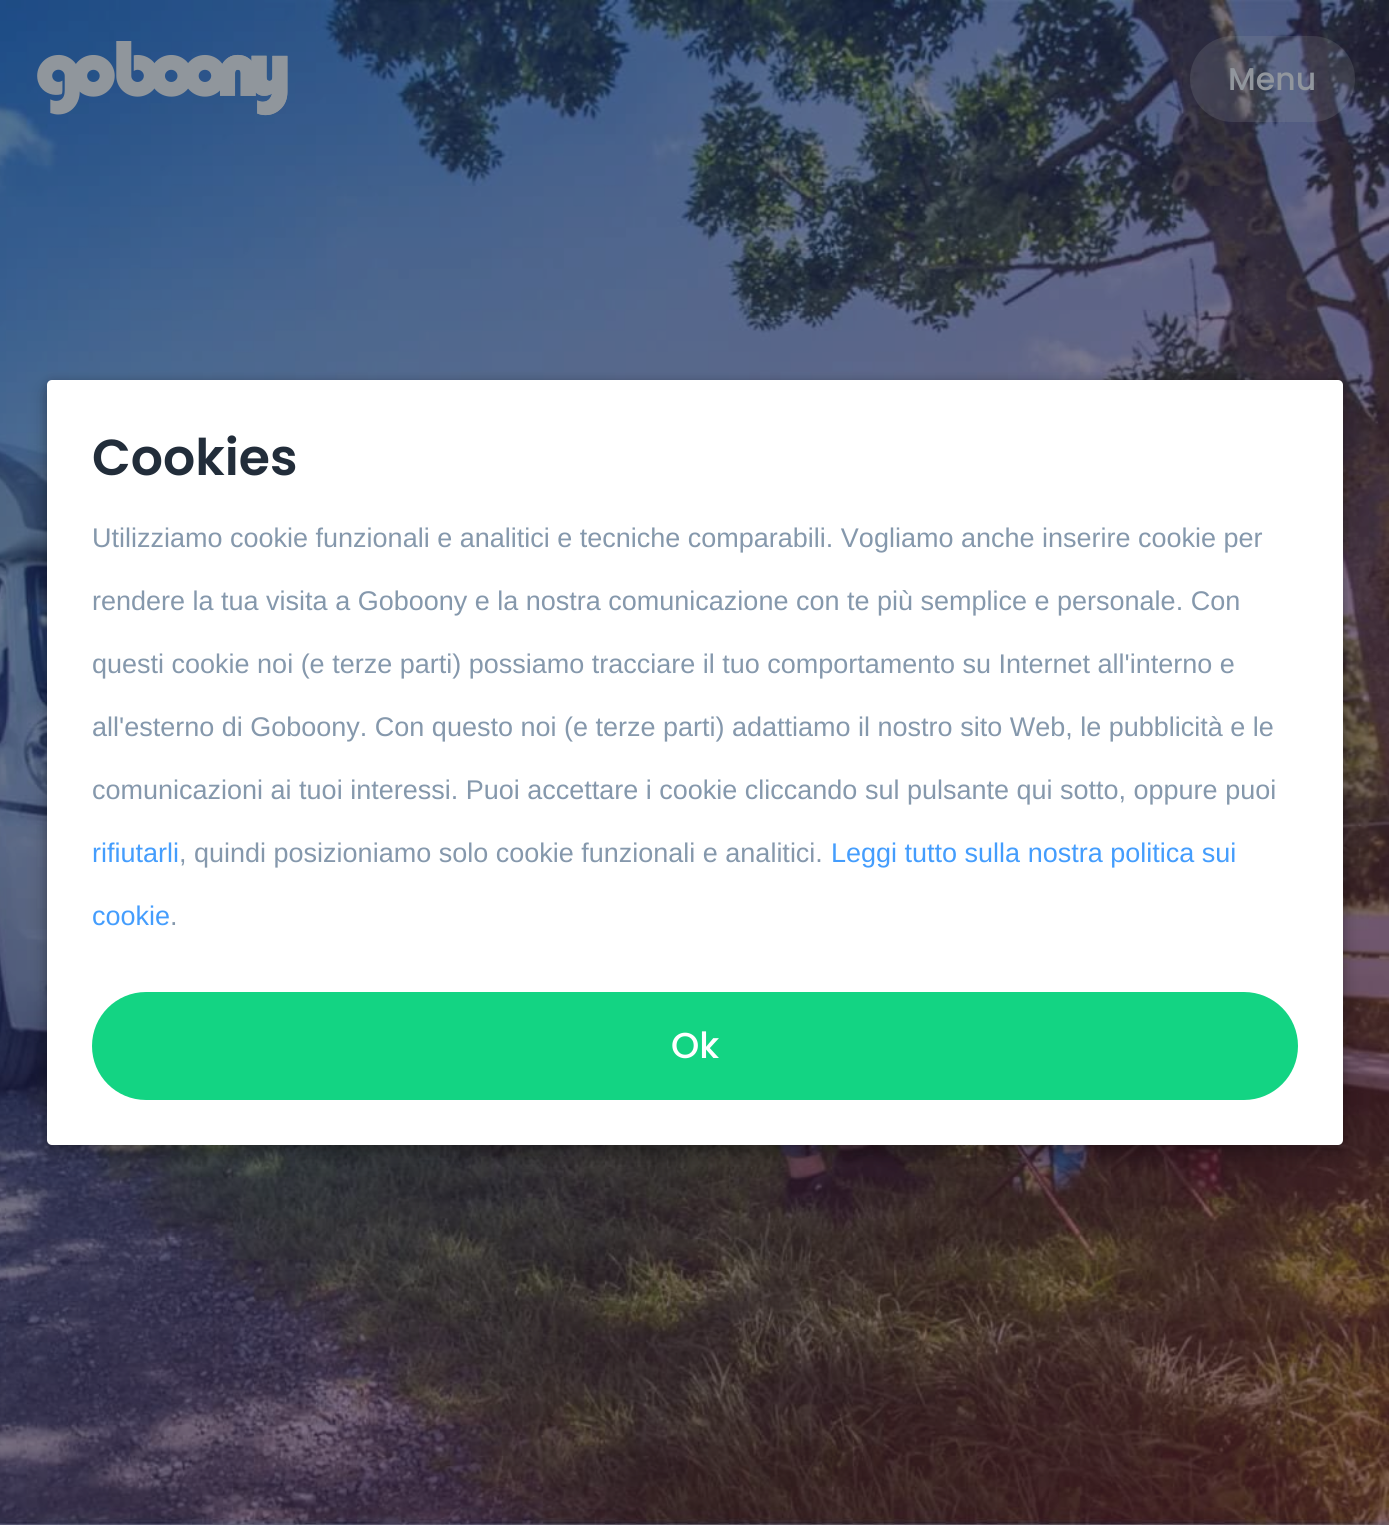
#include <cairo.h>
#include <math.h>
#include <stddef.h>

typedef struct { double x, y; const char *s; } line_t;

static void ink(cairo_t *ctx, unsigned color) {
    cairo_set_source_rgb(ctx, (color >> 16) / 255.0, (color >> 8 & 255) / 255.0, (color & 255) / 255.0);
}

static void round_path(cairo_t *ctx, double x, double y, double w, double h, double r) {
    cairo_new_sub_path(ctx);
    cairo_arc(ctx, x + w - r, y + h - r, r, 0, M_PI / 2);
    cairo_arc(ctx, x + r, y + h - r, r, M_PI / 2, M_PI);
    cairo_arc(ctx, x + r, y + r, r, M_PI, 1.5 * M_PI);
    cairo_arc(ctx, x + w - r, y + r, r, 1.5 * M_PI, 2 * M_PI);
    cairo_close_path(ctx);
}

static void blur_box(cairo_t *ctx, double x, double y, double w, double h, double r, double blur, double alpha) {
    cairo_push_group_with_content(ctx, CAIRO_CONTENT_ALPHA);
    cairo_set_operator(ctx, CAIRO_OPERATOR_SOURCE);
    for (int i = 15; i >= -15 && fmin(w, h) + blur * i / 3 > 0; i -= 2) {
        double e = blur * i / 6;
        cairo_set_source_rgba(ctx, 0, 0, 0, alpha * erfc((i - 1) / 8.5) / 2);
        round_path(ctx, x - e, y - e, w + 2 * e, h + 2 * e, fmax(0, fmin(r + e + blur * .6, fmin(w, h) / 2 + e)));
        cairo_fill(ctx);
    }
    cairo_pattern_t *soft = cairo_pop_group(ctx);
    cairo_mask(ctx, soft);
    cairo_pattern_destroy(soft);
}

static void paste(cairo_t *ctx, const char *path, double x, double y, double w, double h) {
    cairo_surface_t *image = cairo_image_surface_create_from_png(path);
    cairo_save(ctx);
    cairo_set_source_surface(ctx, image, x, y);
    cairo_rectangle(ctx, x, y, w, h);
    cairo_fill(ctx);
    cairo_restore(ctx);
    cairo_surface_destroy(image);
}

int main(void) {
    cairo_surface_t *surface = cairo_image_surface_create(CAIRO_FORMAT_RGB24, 1389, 1525);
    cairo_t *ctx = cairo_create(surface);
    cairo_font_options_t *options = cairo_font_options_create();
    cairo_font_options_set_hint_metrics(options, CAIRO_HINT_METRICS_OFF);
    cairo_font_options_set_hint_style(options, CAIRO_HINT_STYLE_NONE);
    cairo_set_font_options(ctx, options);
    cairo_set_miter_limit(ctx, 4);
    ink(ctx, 0xFFFFFF);
    cairo_paint(ctx);
    paste(ctx, "media/1.png", 0, 0, 1389, 1525);
    paste(ctx, "media/2.png", 37, 41, 251, 75);
    cairo_set_source_rgba(ctx, 0.569, 0.588, 0.616, 0.2);
    round_path(ctx, 1190, 36, 165, 86, 43);
    cairo_fill(ctx);
    cairo_select_font_face(ctx, "Poppins Medium", CAIRO_FONT_SLANT_NORMAL, CAIRO_FONT_WEIGHT_NORMAL);
    cairo_set_font_size(ctx, 31.5);
    ink(ctx, 0x91969D);
    cairo_move_to(ctx, 1228, 90);
    cairo_show_text(ctx, "Menu");
    ink(ctx, 0x000000);
    blur_box(ctx, 47, 389, 1296, 765, 5, 9, 0.28);
    blur_box(ctx, 47, 380, 1296, 765, 5, 4.5, 0.14);
    ink(ctx, 0xFFFFFF);
    round_path(ctx, 47, 380, 1296, 765, 5);
    cairo_fill(ctx);
    cairo_select_font_face(ctx, "Poppins SemiBold", CAIRO_FONT_SLANT_NORMAL, CAIRO_FONT_WEIGHT_NORMAL);
    cairo_set_font_size(ctx, 50.5);
    ink(ctx, 0x222D3A);
    cairo_move_to(ctx, 92, 475);
    cairo_show_text(ctx, "Cookies");
    cairo_select_font_face(ctx, "Liberation Sans", CAIRO_FONT_SLANT_NORMAL, CAIRO_FONT_WEIGHT_NORMAL);
    cairo_set_font_size(ctx, 27);
    ink(ctx, 0x8598AC);
    {
        static const line_t items[] = {
            {92, 547, "Utilizziamo cookie funzionali e analitici e tecniche comparabili. Vogliamo anche inserire cookie per"},
            {92, 610, "rendere la tua visita a Goboony e la nostra comunicazione con te più semplice e personale. Con"},
            {92, 673, "questi cookie noi (e terze parti) possiamo tracciare il tuo comportamento su Internet all'interno e"},
            {92, 736, "all'esterno di Goboony. Con questo noi (e terze parti) adattiamo il nostro sito Web, le pubblicità e le"},
            {92, 799, "comunicazioni ai tuoi interessi. Puoi accettare i cookie cliccando sul pulsante qui sotto, oppure puoi"},
        };
        for (size_t i = 0; i < sizeof items / sizeof *items; i++) {
            cairo_move_to(ctx, items[i].x, items[i].y);
            cairo_show_text(ctx, items[i].s);
        }
    }
    ink(ctx, 0x449DFD);
    cairo_move_to(ctx, 92, 862);
    cairo_show_text(ctx, "rifiutarli");
    ink(ctx, 0x8598AC);
    cairo_move_to(ctx, 179, 862);
    cairo_show_text(ctx, ", quindi posizioniamo solo cookie funzionali e analitici.");
    ink(ctx, 0x449DFD);
    cairo_move_to(ctx, 831, 862);
    cairo_show_text(ctx, "Leggi tutto sulla nostra politica sui");
    cairo_move_to(ctx, 92, 925);
    cairo_show_text(ctx, "cookie");
    ink(ctx, 0x8598AC);
    cairo_move_to(ctx, 170, 925);
    cairo_show_text(ctx, ".");
    ink(ctx, 0x13D483);
    round_path(ctx, 92, 992, 1206, 108, 54);
    cairo_fill(ctx);
    cairo_select_font_face(ctx, "Poppins Medium", CAIRO_FONT_SLANT_NORMAL, CAIRO_FONT_WEIGHT_NORMAL);
    cairo_set_font_size(ctx, 36);
    ink(ctx, 0xFFFFFF);
    cairo_move_to(ctx, 671, 1058);
    cairo_show_text(ctx, "Ok");
    cairo_surface_write_to_png(surface, "image.png");
    cairo_font_options_destroy(options);
    cairo_destroy(ctx);
    cairo_surface_destroy(surface);
    return 0;
}
